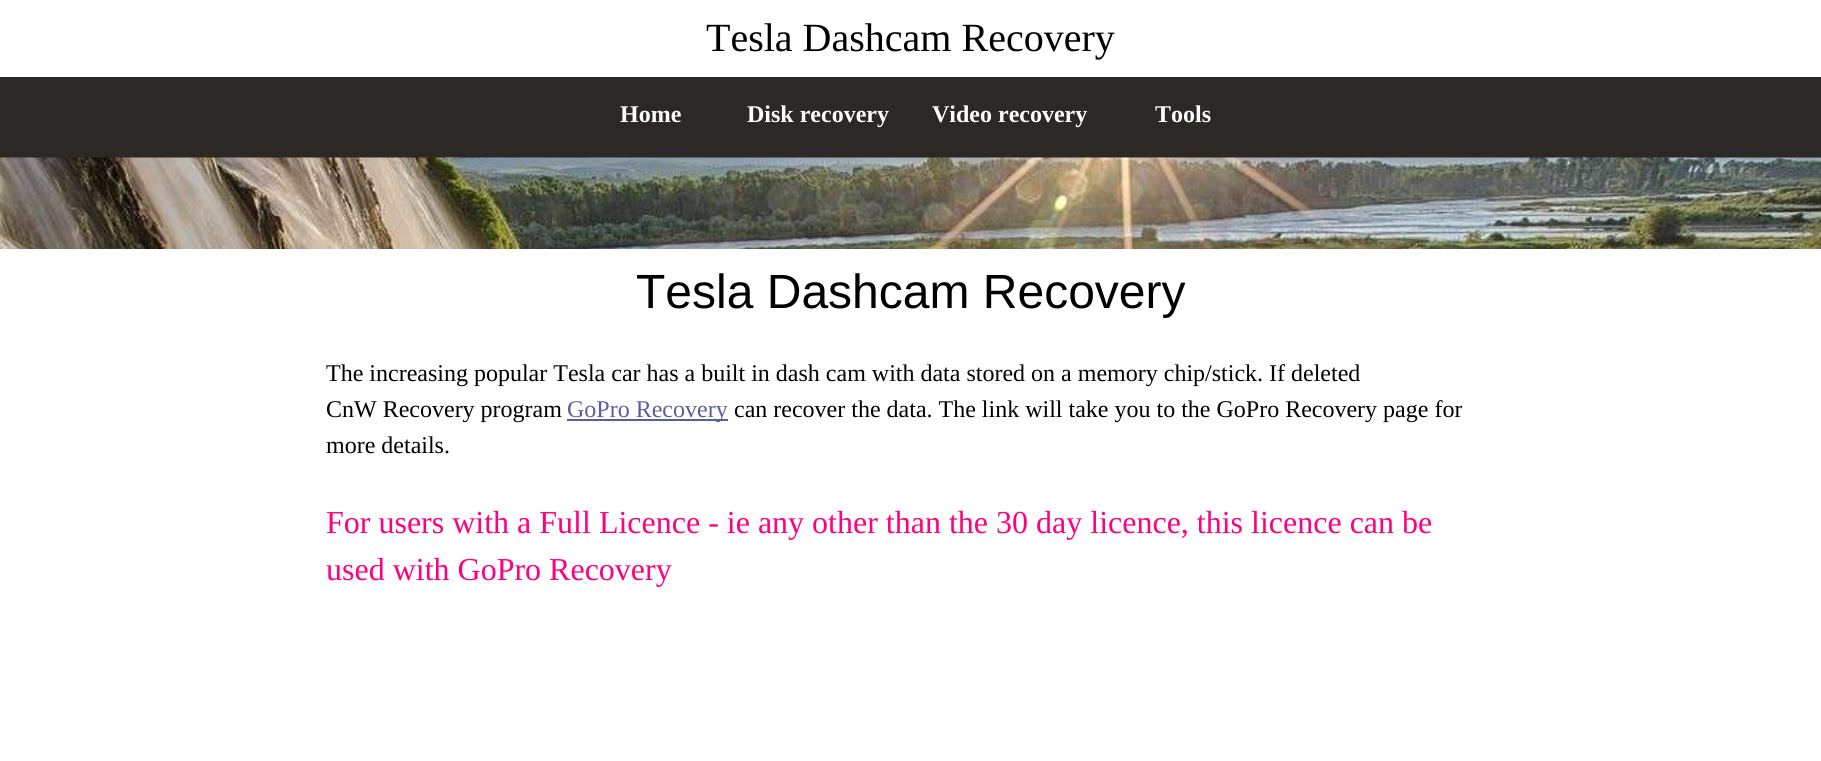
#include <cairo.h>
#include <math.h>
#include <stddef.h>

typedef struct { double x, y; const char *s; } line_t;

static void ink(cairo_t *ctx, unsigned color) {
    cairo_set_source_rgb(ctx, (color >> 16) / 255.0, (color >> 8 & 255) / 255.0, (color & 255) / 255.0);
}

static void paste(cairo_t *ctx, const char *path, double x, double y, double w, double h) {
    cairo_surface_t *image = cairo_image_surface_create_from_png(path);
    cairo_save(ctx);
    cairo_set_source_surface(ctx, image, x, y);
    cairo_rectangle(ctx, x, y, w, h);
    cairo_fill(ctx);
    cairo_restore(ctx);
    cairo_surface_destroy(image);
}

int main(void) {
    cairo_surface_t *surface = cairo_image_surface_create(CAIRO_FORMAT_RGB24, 1821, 761);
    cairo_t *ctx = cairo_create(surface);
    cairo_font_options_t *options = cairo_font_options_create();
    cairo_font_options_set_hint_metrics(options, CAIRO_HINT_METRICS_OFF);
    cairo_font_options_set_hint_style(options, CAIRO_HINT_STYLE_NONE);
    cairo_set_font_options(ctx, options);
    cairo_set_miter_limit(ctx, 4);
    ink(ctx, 0xFFFFFF);
    cairo_paint(ctx);
    cairo_select_font_face(ctx, "Liberation Serif", CAIRO_FONT_SLANT_NORMAL, CAIRO_FONT_WEIGHT_NORMAL);
    cairo_set_font_size(ctx, 40);
    ink(ctx, 0x000000);
    cairo_move_to(ctx, 706, 51);
    cairo_show_text(ctx, "Tesla Dashcam Recovery");
    ink(ctx, 0x2C2825);
    cairo_rectangle(ctx, 0, 77, 1821, 81);
    cairo_fill(ctx);
    cairo_select_font_face(ctx, "Liberation Serif", CAIRO_FONT_SLANT_NORMAL, CAIRO_FONT_WEIGHT_BOLD);
    cairo_set_font_size(ctx, 24);
    ink(ctx, 0xFFFFFF);
    {
        static const line_t items[] = {
            {620, 122, "Home"},
            {747, 122, "Disk recovery"},
            {932, 122, "Video recovery"},
            {1155, 122, "Tools"},
        };
        for (size_t i = 0; i < sizeof items / sizeof *items; i++) {
            cairo_move_to(ctx, items[i].x, items[i].y);
            cairo_show_text(ctx, items[i].s);
        }
    }
    paste(ctx, "media/1.png", 0, 157, 1821, 92);
    cairo_select_font_face(ctx, "Liberation Sans", CAIRO_FONT_SLANT_NORMAL, CAIRO_FONT_WEIGHT_NORMAL);
    cairo_set_font_size(ctx, 48);
    ink(ctx, 0x000000);
    cairo_move_to(ctx, 636, 308);
    cairo_show_text(ctx, "Tesla Dashcam Recovery");
    cairo_select_font_face(ctx, "Liberation Serif", CAIRO_FONT_SLANT_NORMAL, CAIRO_FONT_WEIGHT_NORMAL);
    cairo_set_font_size(ctx, 24);
    cairo_move_to(ctx, 326, 381);
    cairo_show_text(ctx, "The increasing popular Tesla car has a built in dash cam with data stored on a memory chip/stick. If deleted");
    cairo_move_to(ctx, 326, 417);
    cairo_show_text(ctx, "CnW Recovery program");
    ink(ctx, 0x5D5D9E);
    cairo_rectangle(ctx, 567, 419, 161, 2);
    cairo_fill(ctx);
    cairo_move_to(ctx, 567, 417);
    cairo_show_text(ctx, "GoPro Recovery");
    ink(ctx, 0x000000);
    cairo_move_to(ctx, 734, 417);
    cairo_show_text(ctx, "can recover the data. The link will take you to the GoPro Recovery page for");
    cairo_move_to(ctx, 326, 453);
    cairo_show_text(ctx, "more details.");
    cairo_set_font_size(ctx, 32);
    ink(ctx, 0xFF0080);
    cairo_move_to(ctx, 326, 533);
    cairo_show_text(ctx, "For users with a Full Licence - ie any other than the 30 day licence, this licence can be");
    cairo_move_to(ctx, 326, 580);
    cairo_show_text(ctx, "used with GoPro Recovery");
    cairo_surface_write_to_png(surface, "image.png");
    cairo_font_options_destroy(options);
    cairo_destroy(ctx);
    cairo_surface_destroy(surface);
    return 0;
}
